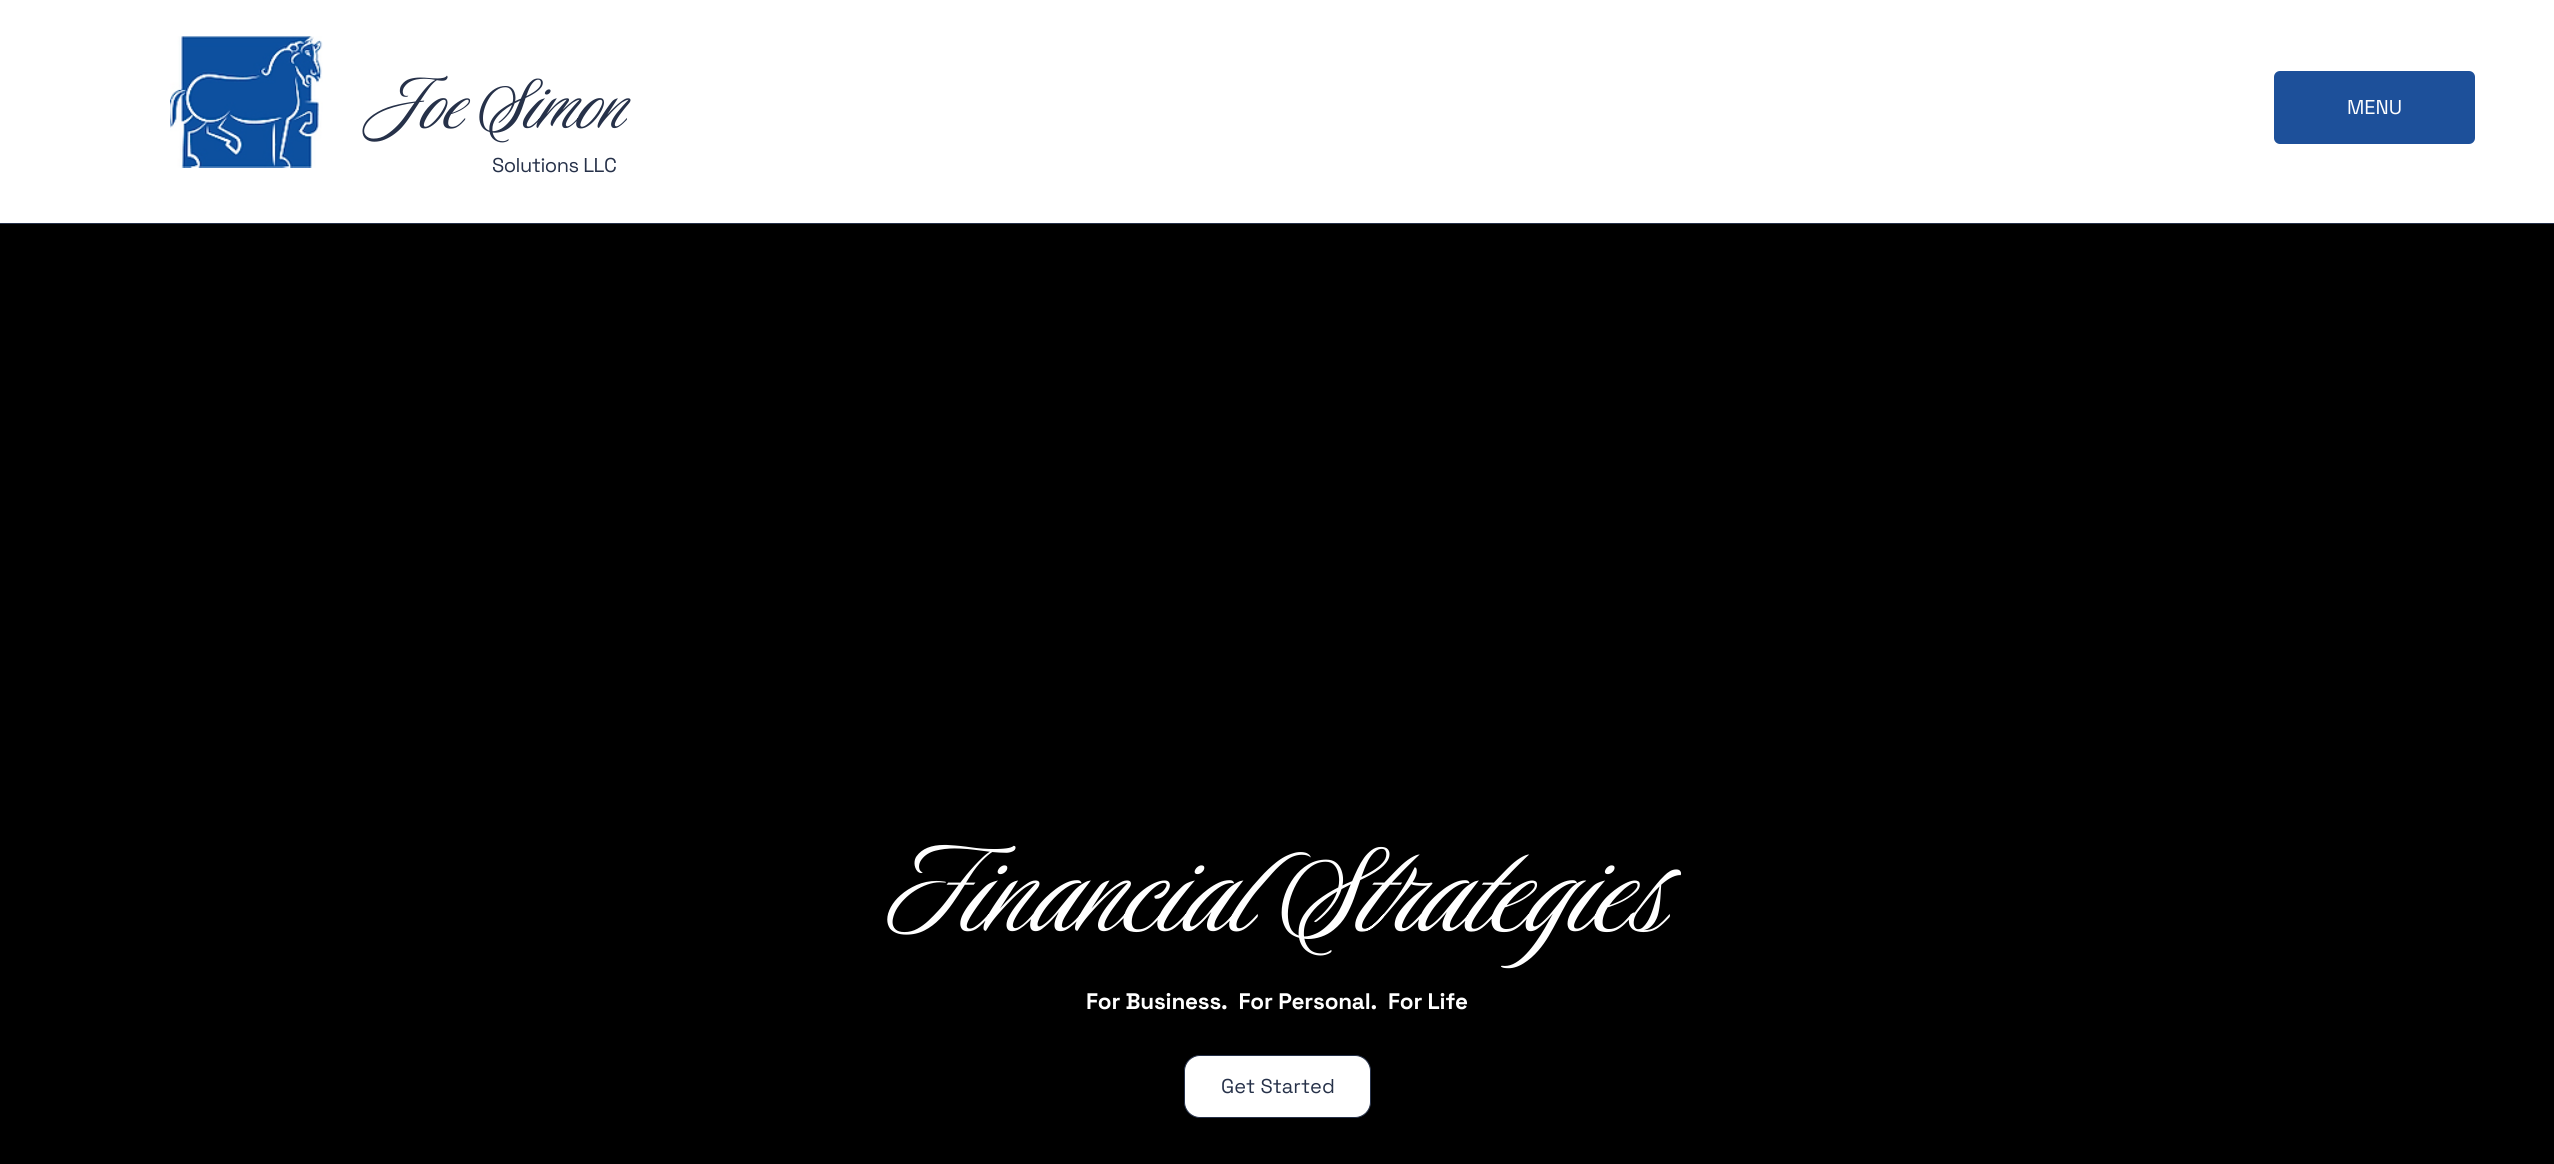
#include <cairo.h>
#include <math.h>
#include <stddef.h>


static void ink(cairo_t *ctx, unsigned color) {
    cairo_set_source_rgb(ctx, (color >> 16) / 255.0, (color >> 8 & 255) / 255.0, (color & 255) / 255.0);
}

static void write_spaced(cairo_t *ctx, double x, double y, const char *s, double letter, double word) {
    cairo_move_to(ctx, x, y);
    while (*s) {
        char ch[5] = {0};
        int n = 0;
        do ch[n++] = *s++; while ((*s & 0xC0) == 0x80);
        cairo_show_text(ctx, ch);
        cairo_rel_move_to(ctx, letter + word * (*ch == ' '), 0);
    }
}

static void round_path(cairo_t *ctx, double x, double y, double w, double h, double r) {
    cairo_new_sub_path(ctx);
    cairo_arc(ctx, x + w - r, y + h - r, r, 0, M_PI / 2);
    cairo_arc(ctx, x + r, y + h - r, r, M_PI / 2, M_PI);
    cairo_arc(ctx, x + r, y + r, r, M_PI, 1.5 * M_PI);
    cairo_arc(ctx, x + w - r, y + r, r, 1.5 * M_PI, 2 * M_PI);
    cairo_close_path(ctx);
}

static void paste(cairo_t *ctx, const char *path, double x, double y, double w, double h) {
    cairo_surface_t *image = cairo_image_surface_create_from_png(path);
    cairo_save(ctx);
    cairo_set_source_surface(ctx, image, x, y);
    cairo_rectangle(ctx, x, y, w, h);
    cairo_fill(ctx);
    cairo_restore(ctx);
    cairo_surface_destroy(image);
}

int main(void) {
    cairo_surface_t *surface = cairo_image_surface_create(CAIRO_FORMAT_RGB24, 2554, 1164);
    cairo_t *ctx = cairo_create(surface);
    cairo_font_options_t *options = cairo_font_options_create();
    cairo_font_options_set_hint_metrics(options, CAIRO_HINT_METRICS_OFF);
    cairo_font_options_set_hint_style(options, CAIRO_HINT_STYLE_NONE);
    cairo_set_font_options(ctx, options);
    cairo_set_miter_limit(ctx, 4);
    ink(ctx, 0xFFFFFF);
    cairo_paint(ctx);
    paste(ctx, "media/1.png", 170, 36, 153, 132);
    cairo_select_font_face(ctx, "Luxurious Script", CAIRO_FONT_SLANT_NORMAL, CAIRO_FONT_WEIGHT_NORMAL);
    cairo_set_font_size(ctx, 89);
    ink(ctx, 0x263149);
    cairo_move_to(ctx, 367, 128);
    cairo_show_text(ctx, "Joe Simon");
    cairo_select_font_face(ctx, "Space Grotesk", CAIRO_FONT_SLANT_NORMAL, CAIRO_FONT_WEIGHT_NORMAL);
    cairo_set_font_size(ctx, 20);
    write_spaced(ctx, 492, 172, "Solutions LLC", -0.5, 0);
    ink(ctx, 0x1D509A);
    round_path(ctx, 2274, 71, 201, 73, 6);
    cairo_fill(ctx);
    ink(ctx, 0xFFFFFF);
    cairo_move_to(ctx, 2347, 114);
    cairo_show_text(ctx, "MENU");
    ink(ctx, 0x263149);
    cairo_rectangle(ctx, 0, 223, 2554, 1);
    cairo_fill(ctx);
    ink(ctx, 0x000000);
    cairo_rectangle(ctx, 0, 224, 2554, 940);
    cairo_fill(ctx);
    cairo_select_font_face(ctx, "Luxurious Script", CAIRO_FONT_SLANT_NORMAL, CAIRO_FONT_WEIGHT_NORMAL);
    cairo_set_font_size(ctx, 151.25);
    ink(ctx, 0xFFFFFF);
    cairo_move_to(ctx, 885, 931);
    cairo_show_text(ctx, "Financial Strategies");
    cairo_select_font_face(ctx, "Space Grotesk", CAIRO_FONT_SLANT_NORMAL, CAIRO_FONT_WEIGHT_BOLD);
    cairo_set_font_size(ctx, 22.5);
    write_spaced(ctx, 1086, 1009, "For Business.  For Personal.  For Life", -0.2, 0);
    round_path(ctx, 1184.5, 1055.5, 186, 62, 15.5);
    cairo_fill_preserve(ctx);
    ink(ctx, 0x263149);
    cairo_set_line_width(ctx, 1);
    cairo_stroke(ctx);
    cairo_select_font_face(ctx, "Space Grotesk", CAIRO_FONT_SLANT_NORMAL, CAIRO_FONT_WEIGHT_NORMAL);
    cairo_set_font_size(ctx, 20);
    cairo_move_to(ctx, 1221, 1093);
    cairo_show_text(ctx, "Get Started");
    cairo_surface_write_to_png(surface, "image.png");
    cairo_font_options_destroy(options);
    cairo_destroy(ctx);
    cairo_surface_destroy(surface);
    return 0;
}
